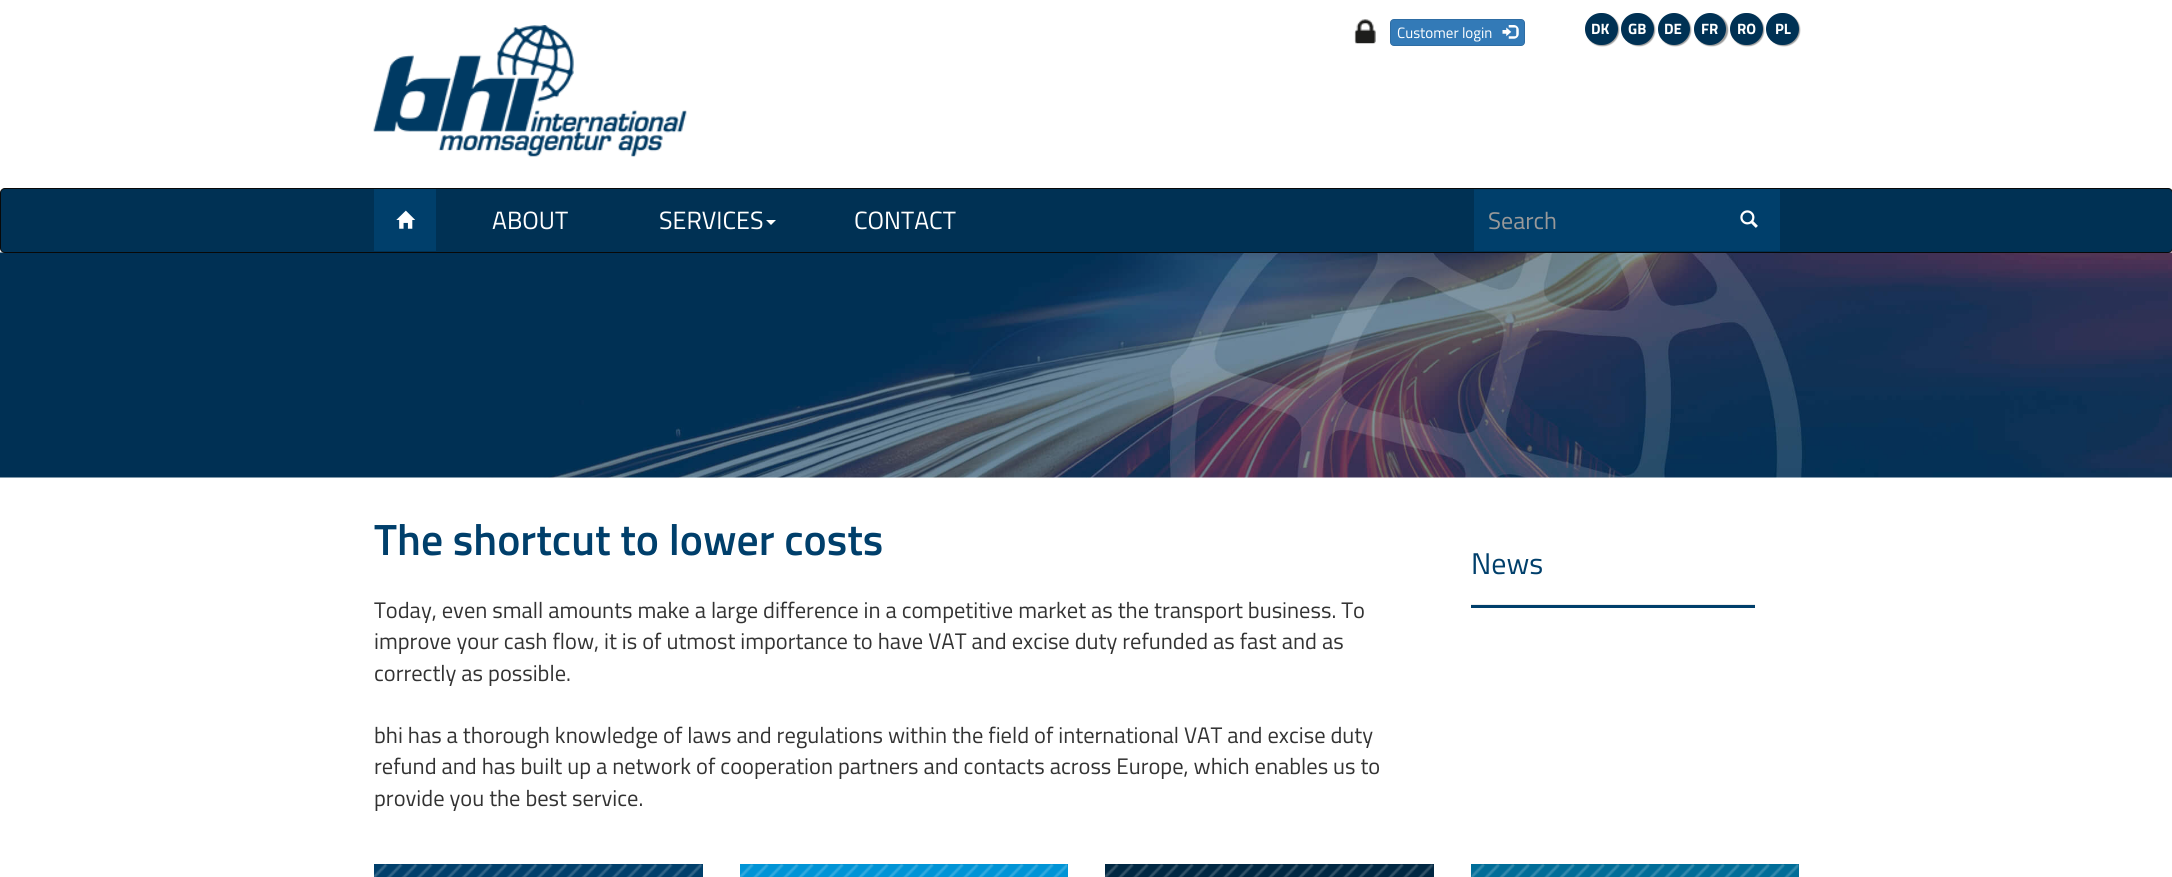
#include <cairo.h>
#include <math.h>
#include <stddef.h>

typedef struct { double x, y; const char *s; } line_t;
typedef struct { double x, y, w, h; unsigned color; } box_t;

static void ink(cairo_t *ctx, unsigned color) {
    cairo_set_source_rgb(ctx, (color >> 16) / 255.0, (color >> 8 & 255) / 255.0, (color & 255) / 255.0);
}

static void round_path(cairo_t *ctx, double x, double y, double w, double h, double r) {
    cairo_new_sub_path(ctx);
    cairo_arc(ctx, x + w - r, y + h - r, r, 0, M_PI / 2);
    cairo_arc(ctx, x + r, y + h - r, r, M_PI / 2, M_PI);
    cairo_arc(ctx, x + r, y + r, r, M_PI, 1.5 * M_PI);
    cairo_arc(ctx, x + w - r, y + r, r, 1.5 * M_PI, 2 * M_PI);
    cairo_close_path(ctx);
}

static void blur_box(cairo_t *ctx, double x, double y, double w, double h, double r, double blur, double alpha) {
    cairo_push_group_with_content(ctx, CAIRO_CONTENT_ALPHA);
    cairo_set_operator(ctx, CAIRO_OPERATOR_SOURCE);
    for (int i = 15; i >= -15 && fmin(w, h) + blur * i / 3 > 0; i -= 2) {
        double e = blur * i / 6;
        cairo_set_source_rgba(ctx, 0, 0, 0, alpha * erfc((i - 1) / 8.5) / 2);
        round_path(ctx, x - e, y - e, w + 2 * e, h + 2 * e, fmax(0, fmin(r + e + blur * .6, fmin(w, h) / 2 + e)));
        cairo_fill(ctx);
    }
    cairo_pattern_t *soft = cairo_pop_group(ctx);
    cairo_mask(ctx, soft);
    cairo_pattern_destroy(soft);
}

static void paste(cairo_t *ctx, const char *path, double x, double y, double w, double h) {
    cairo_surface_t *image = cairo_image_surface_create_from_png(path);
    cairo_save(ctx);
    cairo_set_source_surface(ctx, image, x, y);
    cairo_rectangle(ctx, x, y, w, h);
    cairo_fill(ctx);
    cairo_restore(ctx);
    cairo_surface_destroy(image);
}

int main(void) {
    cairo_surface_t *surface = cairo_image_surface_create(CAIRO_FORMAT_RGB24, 2172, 877);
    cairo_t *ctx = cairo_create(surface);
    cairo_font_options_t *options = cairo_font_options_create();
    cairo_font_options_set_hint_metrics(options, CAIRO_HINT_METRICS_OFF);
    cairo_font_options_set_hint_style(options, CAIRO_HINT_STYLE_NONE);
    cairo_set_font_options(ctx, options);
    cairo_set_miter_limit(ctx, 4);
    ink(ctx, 0xFFFFFF);
    cairo_paint(ctx);
    paste(ctx, "media/1.png", 373, 25, 314, 132);
    paste(ctx, "media/2.png", 1354, 19, 22, 25);
    ink(ctx, 0x337AB7);
    round_path(ctx, 1390.5, 19.5, 134, 26, 3.5);
    cairo_fill_preserve(ctx);
    ink(ctx, 0x2E6DA4);
    cairo_set_line_width(ctx, 1);
    cairo_stroke(ctx);
    cairo_select_font_face(ctx, "Titillium Web", CAIRO_FONT_SLANT_NORMAL, CAIRO_FONT_WEIGHT_NORMAL);
    cairo_set_font_size(ctx, 15);
    ink(ctx, 0xFFFFFF);
    cairo_move_to(ctx, 1397, 38);
    cairo_show_text(ctx, "Customer login");
    paste(ctx, "media/3.png", 1502, 25, 17, 14);
    ink(ctx, 0x999999);
    blur_box(ctx, 1586, 14, 33, 32, 16, 0.5, 1);
    ink(ctx, 0x003154);
    round_path(ctx, 1585, 13, 33, 32, 16);
    cairo_fill(ctx);
    cairo_select_font_face(ctx, "Titillium Web", CAIRO_FONT_SLANT_NORMAL, CAIRO_FONT_WEIGHT_BOLD);
    ink(ctx, 0xFFFFFF);
    cairo_move_to(ctx, 1591, 34);
    cairo_show_text(ctx, "DK");
    ink(ctx, 0x999999);
    blur_box(ctx, 1623, 14, 32, 32, 16, 0.5, 1);
    ink(ctx, 0x003154);
    round_path(ctx, 1621, 13, 33, 32, 16);
    cairo_fill(ctx);
    ink(ctx, 0xFFFFFF);
    cairo_move_to(ctx, 1628, 34);
    cairo_show_text(ctx, "GB");
    ink(ctx, 0x999999);
    blur_box(ctx, 1659, 14, 32, 32, 16, 0.5, 1);
    ink(ctx, 0x003154);
    cairo_arc(ctx, 1674, 29, 16, 0, 2 * M_PI);
    cairo_fill(ctx);
    ink(ctx, 0xFFFFFF);
    cairo_move_to(ctx, 1664, 34);
    cairo_show_text(ctx, "DE");
    ink(ctx, 0x999999);
    blur_box(ctx, 1695, 14, 33, 32, 16, 0.5, 1);
    ink(ctx, 0x003154);
    cairo_arc(ctx, 1710, 29, 16, 0, 2 * M_PI);
    cairo_fill(ctx);
    ink(ctx, 0xFFFFFF);
    cairo_move_to(ctx, 1701, 34);
    cairo_show_text(ctx, "FR");
    ink(ctx, 0x999999);
    blur_box(ctx, 1731, 14, 33, 32, 16, 0.5, 1);
    ink(ctx, 0x003154);
    round_path(ctx, 1730, 13, 33, 32, 16);
    cairo_fill(ctx);
    ink(ctx, 0xFFFFFF);
    cairo_move_to(ctx, 1737, 34);
    cairo_show_text(ctx, "RO");
    ink(ctx, 0x999999);
    blur_box(ctx, 1768, 14, 32, 32, 16, 0.5, 1);
    ink(ctx, 0x003154);
    round_path(ctx, 1766, 13, 33, 32, 16);
    cairo_fill(ctx);
    ink(ctx, 0xFFFFFF);
    cairo_move_to(ctx, 1775, 34);
    cairo_show_text(ctx, "PL");
    paste(ctx, "media/6.png", 0, 252, 2172, 226);
    ink(ctx, 0x003154);
    round_path(ctx, 0.5, 188.5, 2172, 64, 4.5);
    cairo_fill_preserve(ctx);
    ink(ctx, 0x080808);
    cairo_stroke(ctx);
    ink(ctx, 0x003F6B);
    cairo_rectangle(ctx, 374, 189, 62, 62);
    cairo_fill(ctx);
    paste(ctx, "media/4.png", 396, 210, 20, 19);
    cairo_select_font_face(ctx, "Titillium Web", CAIRO_FONT_SLANT_NORMAL, CAIRO_FONT_WEIGHT_NORMAL);
    cairo_set_font_size(ctx, 25);
    ink(ctx, 0xFFFFFF);
    cairo_move_to(ctx, 492, 229);
    cairo_show_text(ctx, "ABOUT");
    cairo_move_to(ctx, 659, 229);
    cairo_show_text(ctx, "SERVICES");
    cairo_new_path(ctx);
    cairo_move_to(ctx, 766, 220);
    cairo_line_to(ctx, 776, 220);
    cairo_line_to(ctx, 771, 225);
    cairo_close_path(ctx);
    cairo_fill(ctx);
    cairo_move_to(ctx, 854, 229);
    cairo_show_text(ctx, "CONTACT");
    ink(ctx, 0x003F6B);
    cairo_rectangle(ctx, 1474, 190, 245, 61);
    cairo_fill(ctx);
    ink(ctx, 0x003A63);
    cairo_rectangle(ctx, 1474, 189, 245, 1);
    cairo_fill(ctx);
    cairo_set_font_size(ctx, 24);
    ink(ctx, 0x999999);
    cairo_move_to(ctx, 1488, 229);
    cairo_show_text(ctx, "Search");
    ink(ctx, 0x003F6B);
    cairo_rectangle(ctx, 1719, 189, 61, 62);
    cairo_fill(ctx);
    paste(ctx, "media/5.png", 1740, 210, 18, 18);
    cairo_select_font_face(ctx, "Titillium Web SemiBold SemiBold", CAIRO_FONT_SLANT_NORMAL, CAIRO_FONT_WEIGHT_NORMAL);
    cairo_set_font_size(ctx, 43.75);
    cairo_move_to(ctx, 374, 555);
    cairo_show_text(ctx, "The shortcut to lower costs");
    cairo_select_font_face(ctx, "Titillium Web", CAIRO_FONT_SLANT_NORMAL, CAIRO_FONT_WEIGHT_NORMAL);
    cairo_set_font_size(ctx, 22.5);
    ink(ctx, 0x333333);
    {
        static const line_t items[] = {
            {374, 618, "Today, even small amounts make a large difference in a competitive market as the transport business. To"},
            {374, 649, "improve your cash flow, it is of utmost importance to have VAT and excise duty refunded as fast and as"},
            {374, 681, "correctly as possible."},
            {374, 743, "bhi has a thorough knowledge of laws and regulations within the field of international VAT and excise duty"},
            {374, 774, "refund and has built up a network of cooperation partners and contacts across Europe, which enables us to"},
            {374, 806, "provide you the best service."},
        };
        for (size_t i = 0; i < sizeof items / sizeof *items; i++) {
            cairo_move_to(ctx, items[i].x, items[i].y);
            cairo_show_text(ctx, items[i].s);
        }
    }
    cairo_set_font_size(ctx, 30);
    ink(ctx, 0x003F6B);
    cairo_move_to(ctx, 1471, 574);
    cairo_show_text(ctx, "News");
    {
        static const box_t items[] = {
            {1471, 605, 284, 3, 0x003F6B},
            {1471, 604, 284, 1, 0xEEEEEE},
            {374, 864, 329, 13, 0x003F6B},
        };
        for (size_t i = 0; i < sizeof items / sizeof *items; i++) {
            ink(ctx, items[i].color);
            cairo_rectangle(ctx, items[i].x, items[i].y, items[i].w, items[i].h);
            cairo_fill(ctx);
        }
    }
    paste(ctx, "media/7.png", 374, 864, 328, 13);
    ink(ctx, 0x0094D6);
    cairo_rectangle(ctx, 740, 864, 328, 13);
    cairo_fill(ctx);
    paste(ctx, "media/8.png", 740, 864, 328, 13);
    ink(ctx, 0x002742);
    cairo_rectangle(ctx, 1105, 864, 329, 13);
    cairo_fill(ctx);
    paste(ctx, "media/9.png", 1105, 864, 329, 13);
    ink(ctx, 0x006D98);
    cairo_rectangle(ctx, 1471, 864, 328, 13);
    cairo_fill(ctx);
    paste(ctx, "media/10.png", 1471, 864, 328, 13);
    cairo_surface_write_to_png(surface, "image.png");
    cairo_font_options_destroy(options);
    cairo_destroy(ctx);
    cairo_surface_destroy(surface);
    return 0;
}
